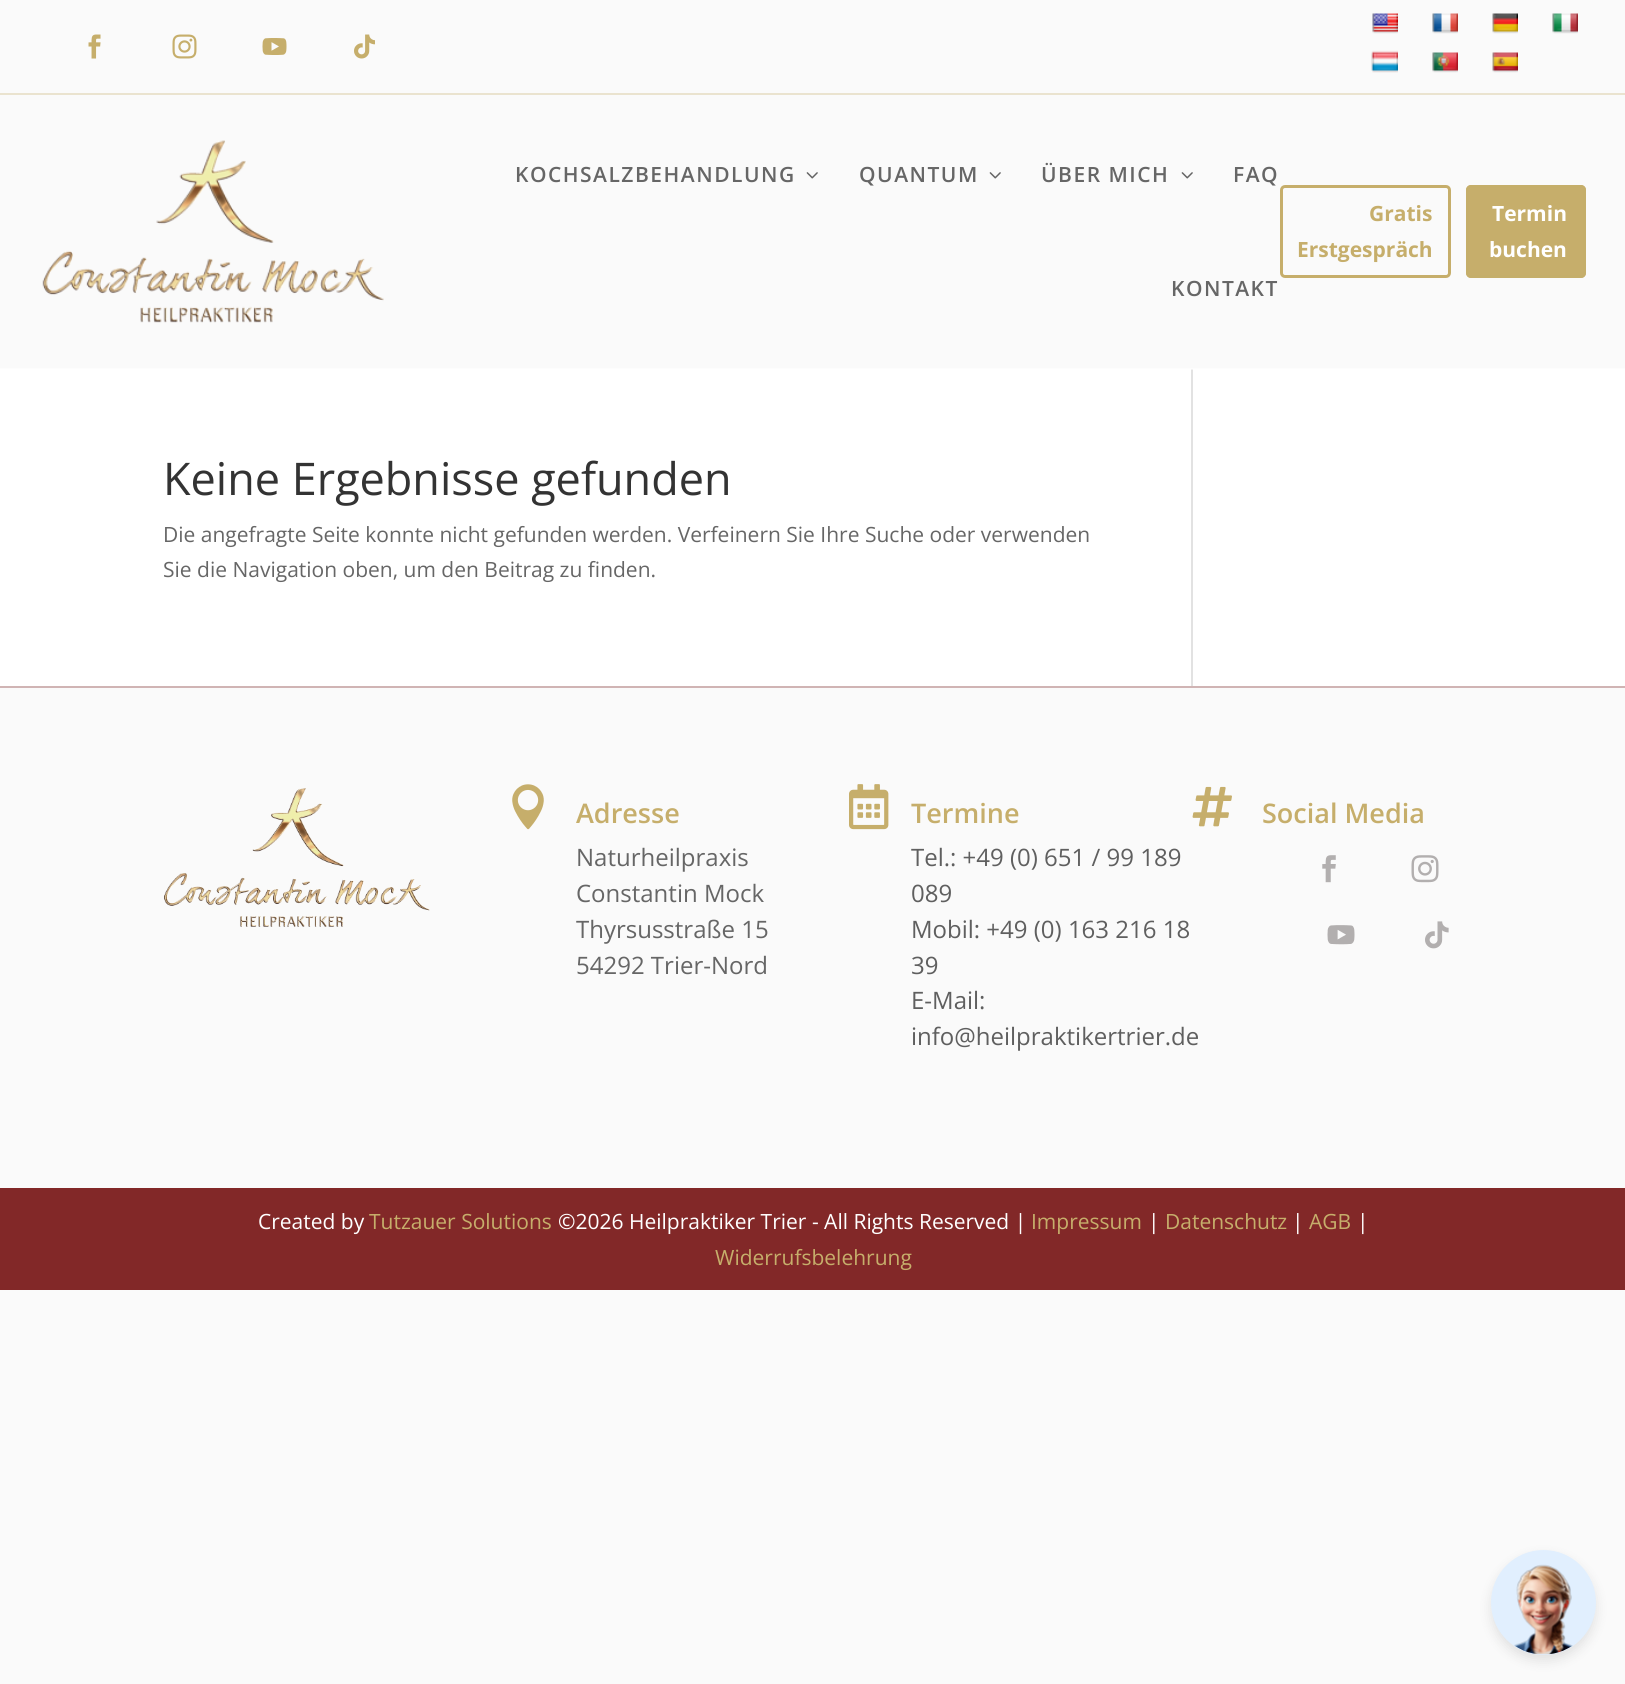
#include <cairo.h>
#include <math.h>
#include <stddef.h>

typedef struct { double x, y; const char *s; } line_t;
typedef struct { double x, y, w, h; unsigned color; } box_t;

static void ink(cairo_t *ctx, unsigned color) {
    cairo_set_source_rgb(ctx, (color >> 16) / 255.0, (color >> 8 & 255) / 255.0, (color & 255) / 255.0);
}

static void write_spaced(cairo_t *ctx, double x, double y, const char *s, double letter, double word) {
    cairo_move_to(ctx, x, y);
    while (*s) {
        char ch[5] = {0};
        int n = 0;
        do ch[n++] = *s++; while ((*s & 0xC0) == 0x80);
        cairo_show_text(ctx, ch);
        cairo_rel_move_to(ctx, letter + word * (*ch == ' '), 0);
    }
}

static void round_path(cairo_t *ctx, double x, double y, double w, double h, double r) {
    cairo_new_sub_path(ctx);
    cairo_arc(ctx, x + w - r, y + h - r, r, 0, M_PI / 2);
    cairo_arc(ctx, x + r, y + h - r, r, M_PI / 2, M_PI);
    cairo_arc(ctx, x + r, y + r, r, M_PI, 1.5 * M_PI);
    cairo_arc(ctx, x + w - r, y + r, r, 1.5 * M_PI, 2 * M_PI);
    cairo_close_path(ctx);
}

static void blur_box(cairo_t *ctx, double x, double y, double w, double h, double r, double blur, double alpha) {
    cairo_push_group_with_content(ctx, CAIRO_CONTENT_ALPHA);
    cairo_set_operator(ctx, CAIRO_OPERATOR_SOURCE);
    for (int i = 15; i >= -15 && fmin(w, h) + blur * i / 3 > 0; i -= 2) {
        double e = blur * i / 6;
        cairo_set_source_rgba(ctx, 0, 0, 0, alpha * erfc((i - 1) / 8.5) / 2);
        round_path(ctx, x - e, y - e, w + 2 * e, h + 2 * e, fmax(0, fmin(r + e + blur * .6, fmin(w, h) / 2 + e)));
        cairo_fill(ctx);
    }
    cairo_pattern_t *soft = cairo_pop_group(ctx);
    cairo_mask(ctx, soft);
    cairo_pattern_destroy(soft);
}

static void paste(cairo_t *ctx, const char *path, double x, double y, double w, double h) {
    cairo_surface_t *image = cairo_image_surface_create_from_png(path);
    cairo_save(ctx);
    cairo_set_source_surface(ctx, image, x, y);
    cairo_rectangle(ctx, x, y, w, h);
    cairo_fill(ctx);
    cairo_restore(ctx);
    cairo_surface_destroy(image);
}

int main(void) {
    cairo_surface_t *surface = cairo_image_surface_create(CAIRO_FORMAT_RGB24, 1625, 1684);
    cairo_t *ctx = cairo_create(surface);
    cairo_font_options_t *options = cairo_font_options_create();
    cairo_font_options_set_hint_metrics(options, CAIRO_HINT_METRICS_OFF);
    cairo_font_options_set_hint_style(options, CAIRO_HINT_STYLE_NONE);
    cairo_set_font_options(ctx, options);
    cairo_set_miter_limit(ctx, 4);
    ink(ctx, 0xFAFAFA);
    cairo_paint(ctx);
    ink(ctx, 0xFDFDFD);
    cairo_rectangle(ctx, 0, 368, 1625, 1);
    cairo_fill(ctx);
    ink(ctx, 0xEAE3CF);
    cairo_rectangle(ctx, 0, 93, 1625, 2);
    cairo_fill(ctx);
    paste(ctx, "media/1.png", 88, 34, 13, 25);
    paste(ctx, "media/2.png", 172, 34, 25, 25);
    paste(ctx, "media/3.png", 262, 38, 25, 17);
    paste(ctx, "media/4.png", 354, 34, 21, 25);
    paste(ctx, "media/5.png", 1372, 13, 26, 21);
    paste(ctx, "media/6.png", 1432, 13, 26, 21);
    paste(ctx, "media/7.png", 1492, 13, 26, 21);
    paste(ctx, "media/8.png", 1552, 13, 26, 21);
    paste(ctx, "media/9.png", 1371, 50, 27, 23);
    paste(ctx, "media/10.png", 1432, 52, 26, 21);
    paste(ctx, "media/11.png", 1492, 52, 26, 21);
    paste(ctx, "media/12.png", 42, 140, 342, 183);
    cairo_select_font_face(ctx, "Open Sans SemiBold", CAIRO_FONT_SLANT_NORMAL, CAIRO_FONT_WEIGHT_NORMAL);
    cairo_set_font_size(ctx, 21);
    ink(ctx, 0x666666);
    write_spaced(ctx, 515, 182, "KOCHSALZBEHANDLUNG", 1.5, 0);
    paste(ctx, "media/13.png", 806, 172, 12, 7);
    write_spaced(ctx, 859, 182, "QUANTUM", 1.5, 0);
    paste(ctx, "media/13.png", 989, 172, 12, 7);
    write_spaced(ctx, 1041, 182, "ÜBER MICH", 1.5, 0);
    paste(ctx, "media/13.png", 1181, 172, 12, 7);
    write_spaced(ctx, 1233, 182, "FAQ", 1.5, 0);
    write_spaced(ctx, 1171, 296, "KONTAKT", 1.5, 0);
    round_path(ctx, 1281.5, 186.5, 168, 90, 3.5);
    ink(ctx, 0xC6AE6B);
    cairo_set_line_width(ctx, 3);
    cairo_stroke(ctx);
    cairo_select_font_face(ctx, "Open Sans", CAIRO_FONT_SLANT_NORMAL, CAIRO_FONT_WEIGHT_BOLD);
    cairo_move_to(ctx, 1369, 221);
    cairo_show_text(ctx, "Gratis");
    cairo_move_to(ctx, 1297, 257);
    cairo_show_text(ctx, "Erstgespräch");
    round_path(ctx, 1466, 185, 120, 93, 5);
    cairo_fill(ctx);
    round_path(ctx, 1467.5, 186.5, 117, 90, 3.5);
    cairo_set_source_rgba(ctx, 0.776, 0.682, 0.42, 0.9);
    cairo_stroke(ctx);
    ink(ctx, 0xFFFFFF);
    cairo_move_to(ctx, 1492, 221);
    cairo_show_text(ctx, "Termin");
    cairo_move_to(ctx, 1489, 257);
    cairo_show_text(ctx, "buchen");
    cairo_rectangle(ctx, 0, 369, 1625, 317);
    cairo_fill(ctx);
    cairo_select_font_face(ctx, "Open Sans", CAIRO_FONT_SLANT_NORMAL, CAIRO_FONT_WEIGHT_NORMAL);
    cairo_set_font_size(ctx, 45);
    ink(ctx, 0x333333);
    cairo_move_to(ctx, 163, 495);
    cairo_show_text(ctx, "Keine Ergebnisse gefunden");
    cairo_set_font_size(ctx, 21);
    ink(ctx, 0x666666);
    cairo_move_to(ctx, 163, 542);
    cairo_show_text(ctx, "Die angefragte Seite konnte nicht gefunden werden. Verfeinern Sie Ihre Suche oder verwenden");
    cairo_move_to(ctx, 163, 577);
    cairo_show_text(ctx, "Sie die Navigation oben, um den Beitrag zu finden.");
    {
        static const box_t items[] = {
            {1191, 369, 2, 317, 0xE2E2E2},
            {1191, 369, 2, 1, 0xF2F2F2},
            {0, 686, 1625, 2, 0xD0B4B4},
        };
        for (size_t i = 0; i < sizeof items / sizeof *items; i++) {
            ink(ctx, items[i].color);
            cairo_rectangle(ctx, items[i].x, items[i].y, items[i].w, items[i].h);
            cairo_fill(ctx);
        }
    }
    paste(ctx, "media/14.png", 164, 788, 266, 139);
    paste(ctx, "media/15.png", 512, 784, 32, 46);
    cairo_select_font_face(ctx, "Open Sans SemiBold", CAIRO_FONT_SLANT_NORMAL, CAIRO_FONT_WEIGHT_NORMAL);
    cairo_set_font_size(ctx, 27);
    ink(ctx, 0xC6AE6B);
    cairo_move_to(ctx, 576, 823);
    cairo_show_text(ctx, "Adresse");
    cairo_select_font_face(ctx, "Open Sans", CAIRO_FONT_SLANT_NORMAL, CAIRO_FONT_WEIGHT_NORMAL);
    cairo_set_font_size(ctx, 24);
    ink(ctx, 0x666666);
    {
        static const line_t items[] = {
            {576, 866, "Naturheilpraxis"},
            {576, 902, "Constantin Mock"},
            {576, 938, "Thyrsusstraße 15"},
            {576, 974, "54292 Trier-Nord"},
        };
        for (size_t i = 0; i < sizeof items / sizeof *items; i++) {
            cairo_move_to(ctx, items[i].x, items[i].y);
            cairo_show_text(ctx, items[i].s);
        }
    }
    paste(ctx, "media/16.png", 849, 784, 40, 46);
    cairo_select_font_face(ctx, "Open Sans SemiBold", CAIRO_FONT_SLANT_NORMAL, CAIRO_FONT_WEIGHT_NORMAL);
    cairo_set_font_size(ctx, 27);
    ink(ctx, 0xC6AE6B);
    cairo_move_to(ctx, 911, 823);
    cairo_show_text(ctx, "Termine");
    cairo_select_font_face(ctx, "Open Sans", CAIRO_FONT_SLANT_NORMAL, CAIRO_FONT_WEIGHT_NORMAL);
    cairo_set_font_size(ctx, 24);
    ink(ctx, 0x5F5F5F);
    {
        static const line_t items[] = {
            {911, 866, "Tel.: +49 (0) 651 / 99 189"},
            {911, 902, "089"},
            {911, 938, "Mobil: +49 (0) 163 216 18"},
            {911, 974, "39"},
            {911, 1009, "E-Mail:"},
            {911, 1045, "info@heilpraktikertrier.de"},
        };
        for (size_t i = 0; i < sizeof items / sizeof *items; i++) {
            cairo_move_to(ctx, items[i].x, items[i].y);
            cairo_show_text(ctx, items[i].s);
        }
    }
    paste(ctx, "media/17.png", 1192, 786, 40, 41);
    cairo_select_font_face(ctx, "Open Sans SemiBold", CAIRO_FONT_SLANT_NORMAL, CAIRO_FONT_WEIGHT_NORMAL);
    cairo_set_font_size(ctx, 27);
    ink(ctx, 0xC6AE6B);
    cairo_move_to(ctx, 1262, 823);
    cairo_show_text(ctx, "Social Media");
    paste(ctx, "media/18.png", 1322, 855, 14, 28);
    paste(ctx, "media/19.png", 1411, 855, 28, 28);
    paste(ctx, "media/20.png", 1327, 925, 28, 20);
    paste(ctx, "media/21.png", 1425, 921, 24, 28);
    ink(ctx, 0x822828);
    cairo_rectangle(ctx, 0, 1188, 1625, 102);
    cairo_fill(ctx);
    cairo_select_font_face(ctx, "Open Sans", CAIRO_FONT_SLANT_NORMAL, CAIRO_FONT_WEIGHT_NORMAL);
    cairo_set_font_size(ctx, 21);
    ink(ctx, 0xFFFFFF);
    cairo_move_to(ctx, 258, 1229);
    cairo_show_text(ctx, "Created by");
    ink(ctx, 0xC6AE6B);
    cairo_move_to(ctx, 369, 1229);
    cairo_show_text(ctx, "Tutzauer Solutions");
    ink(ctx, 0xFFFFFF);
    cairo_move_to(ctx, 558, 1229);
    cairo_show_text(ctx, "©2026 Heilpraktiker Trier - All Rights Reserved |");
    ink(ctx, 0xC6AE6B);
    cairo_move_to(ctx, 1031, 1229);
    cairo_show_text(ctx, "Impressum");
    ink(ctx, 0xFFFFFF);
    cairo_move_to(ctx, 1148, 1229);
    cairo_show_text(ctx, "|");
    ink(ctx, 0xC6AE6B);
    cairo_move_to(ctx, 1165, 1229);
    cairo_show_text(ctx, "Datenschutz");
    ink(ctx, 0xFFFFFF);
    cairo_move_to(ctx, 1292, 1229);
    cairo_show_text(ctx, "|");
    ink(ctx, 0xC6AE6B);
    cairo_move_to(ctx, 1309, 1229);
    cairo_show_text(ctx, "AGB");
    ink(ctx, 0xFFFFFF);
    cairo_move_to(ctx, 1357, 1229);
    cairo_show_text(ctx, "|");
    ink(ctx, 0xC6AE6B);
    cairo_move_to(ctx, 715, 1265);
    cairo_show_text(ctx, "Widerrufsbelehrung");
    ink(ctx, 0x000000);
    blur_box(ctx, 1491, 1556, 105, 105, 52.5, 6, 0.1);
    ink(ctx, 0xE1EFFE);
    cairo_arc(ctx, 1543.5, 1602.5, 52.5, 0, 2 * M_PI);
    cairo_fill(ctx);
    paste(ctx, "media/22.png", 1514, 1564, 59, 91);
    cairo_surface_write_to_png(surface, "image.png");
    cairo_font_options_destroy(options);
    cairo_destroy(ctx);
    cairo_surface_destroy(surface);
    return 0;
}
